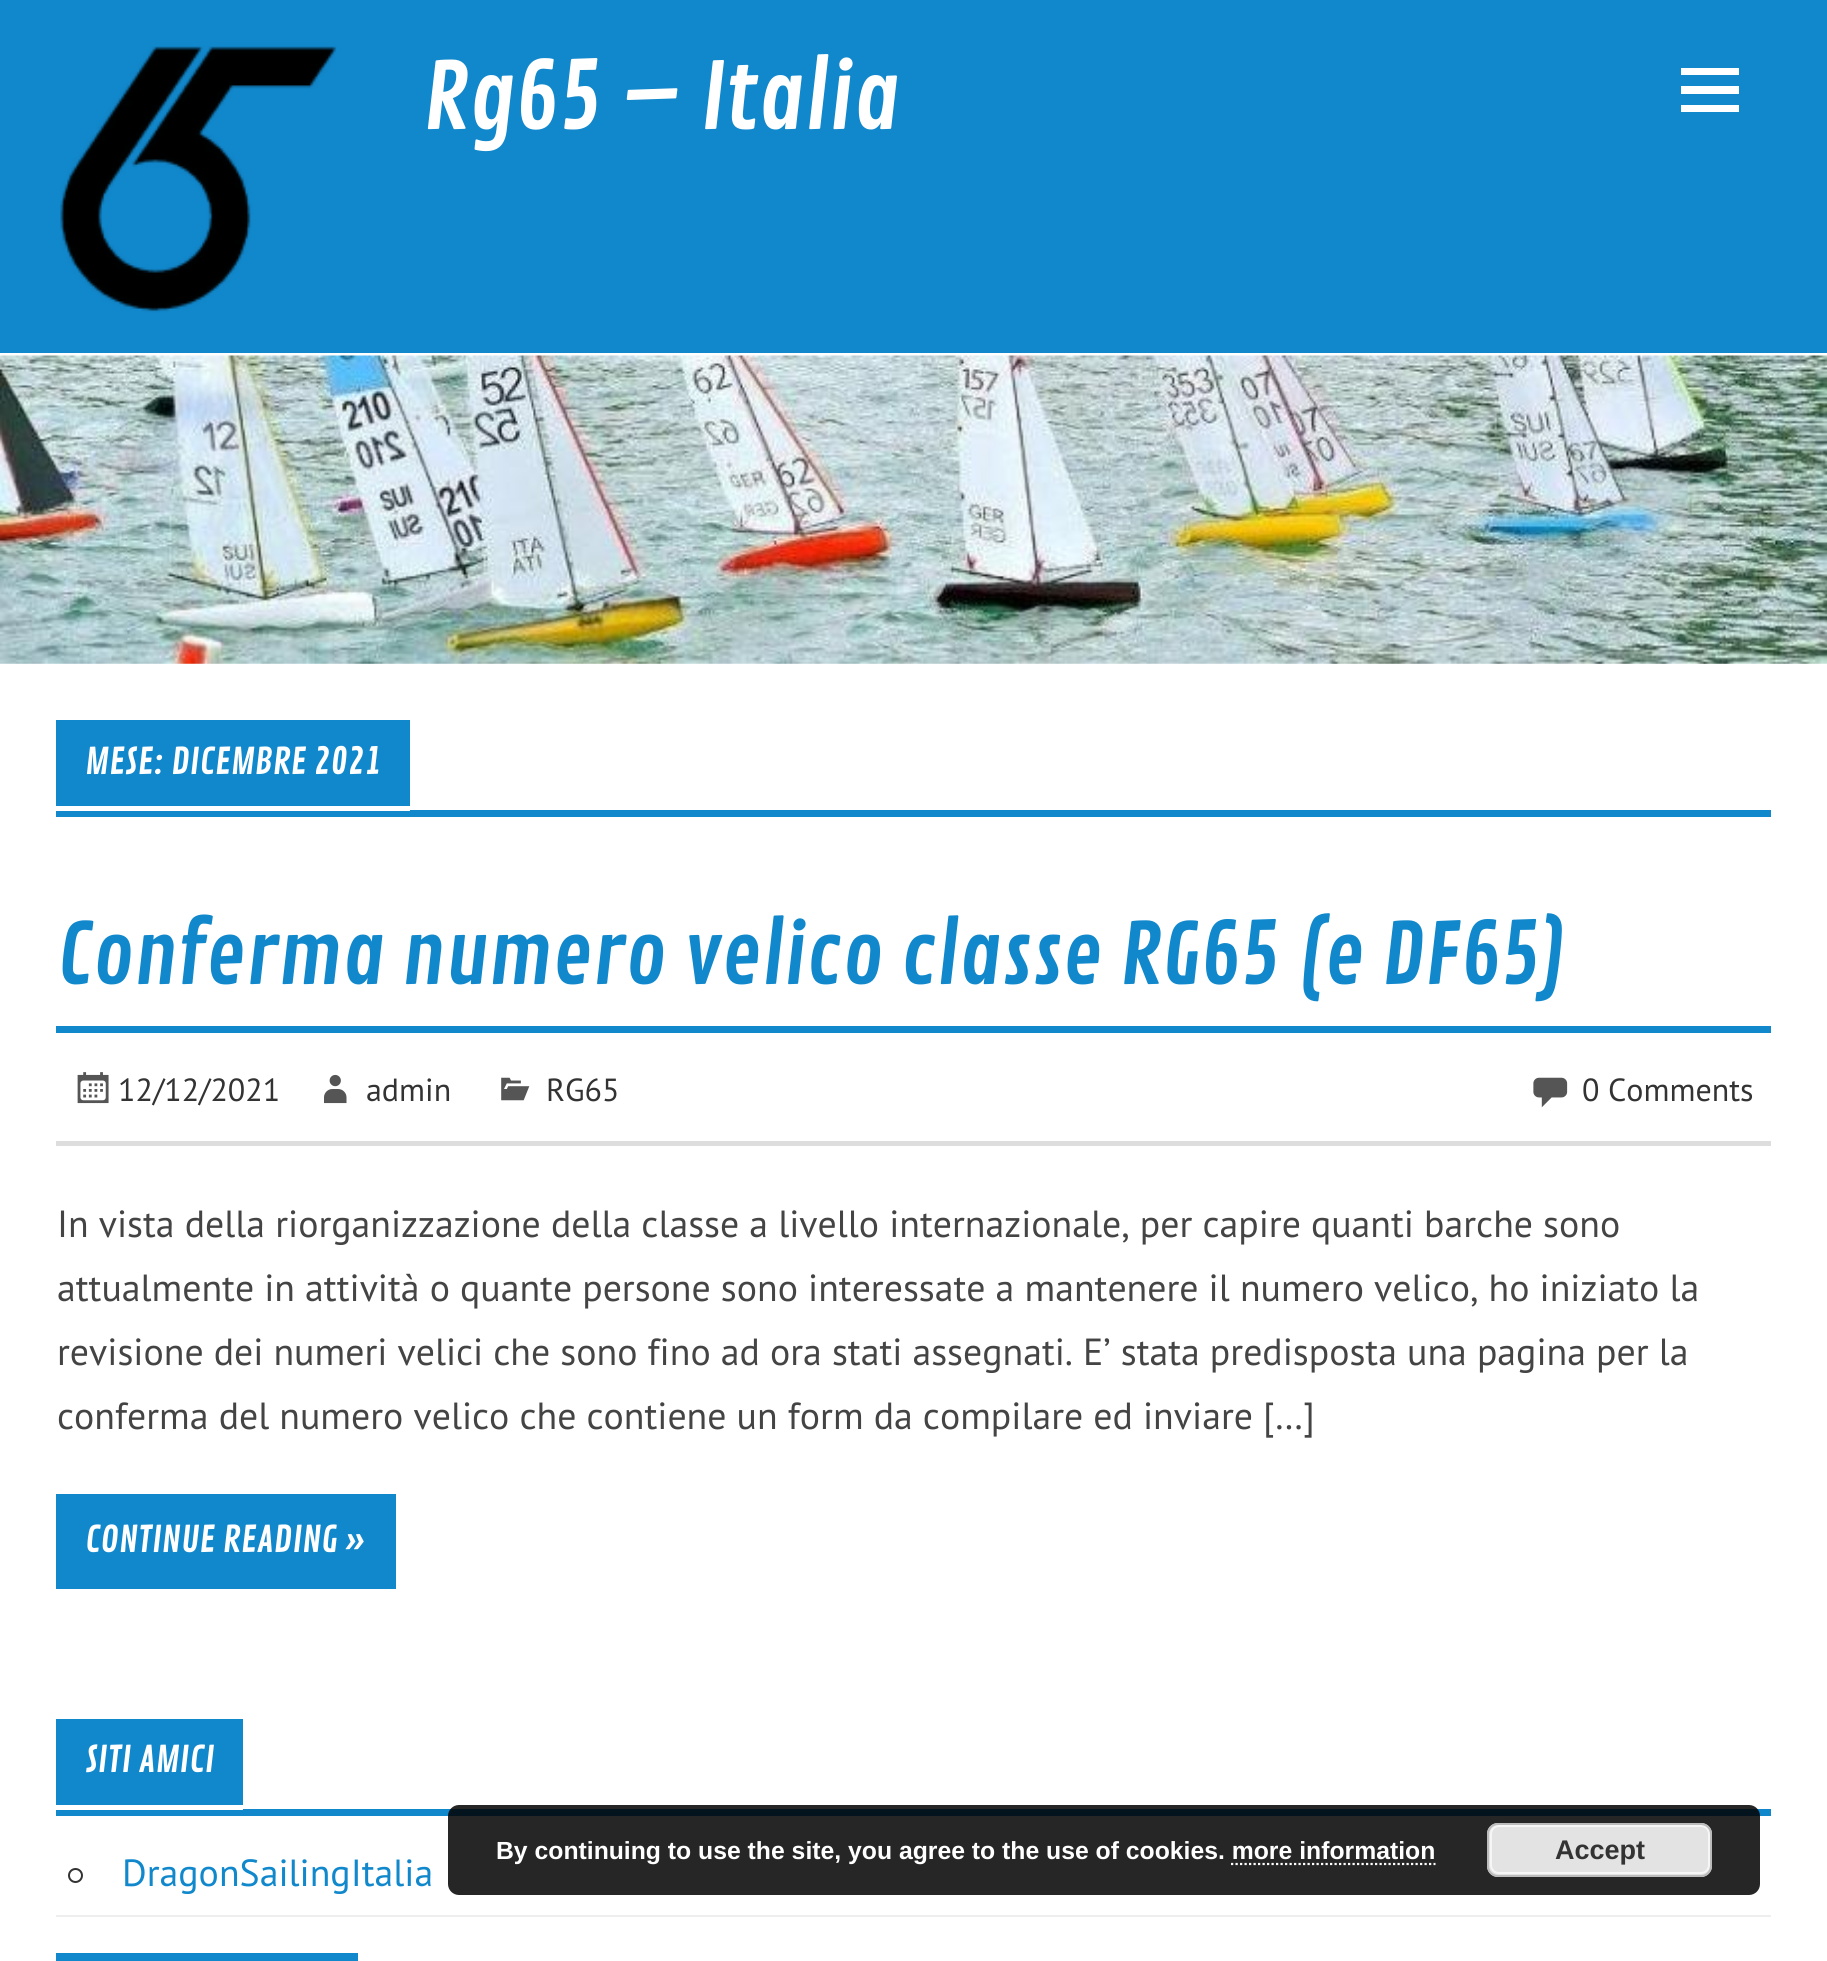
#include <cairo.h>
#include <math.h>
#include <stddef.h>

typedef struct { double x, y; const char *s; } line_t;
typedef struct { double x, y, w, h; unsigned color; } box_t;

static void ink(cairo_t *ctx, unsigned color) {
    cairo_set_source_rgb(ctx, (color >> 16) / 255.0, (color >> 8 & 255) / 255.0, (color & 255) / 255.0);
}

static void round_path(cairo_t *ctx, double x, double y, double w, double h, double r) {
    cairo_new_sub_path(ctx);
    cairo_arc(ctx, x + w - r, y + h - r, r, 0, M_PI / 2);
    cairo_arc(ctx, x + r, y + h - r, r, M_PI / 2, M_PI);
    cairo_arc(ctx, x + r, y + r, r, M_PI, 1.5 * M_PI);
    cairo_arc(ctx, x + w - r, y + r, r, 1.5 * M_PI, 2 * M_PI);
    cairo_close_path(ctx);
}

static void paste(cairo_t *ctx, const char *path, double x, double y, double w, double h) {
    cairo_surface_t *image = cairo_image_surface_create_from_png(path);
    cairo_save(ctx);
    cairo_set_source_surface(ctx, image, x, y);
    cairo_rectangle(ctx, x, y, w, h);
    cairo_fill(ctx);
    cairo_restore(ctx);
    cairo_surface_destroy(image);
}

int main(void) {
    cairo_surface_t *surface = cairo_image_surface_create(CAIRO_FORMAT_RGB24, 1827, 1961);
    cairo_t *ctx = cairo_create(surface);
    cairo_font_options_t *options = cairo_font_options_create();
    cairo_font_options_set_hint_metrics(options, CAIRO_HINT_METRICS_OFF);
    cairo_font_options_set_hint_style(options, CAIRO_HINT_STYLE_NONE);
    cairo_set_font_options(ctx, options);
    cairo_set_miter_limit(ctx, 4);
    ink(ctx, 0xFFFFFF);
    cairo_paint(ctx);
    ink(ctx, 0x1188CC);
    cairo_rectangle(ctx, 0, 0, 1827, 353);
    cairo_fill(ctx);
    paste(ctx, "media/1.png", 60, 46, 277, 267);
    cairo_select_font_face(ctx, "Contrail One", CAIRO_FONT_SLANT_NORMAL, CAIRO_FONT_WEIGHT_NORMAL);
    cairo_set_font_size(ctx, 90.75);
    ink(ctx, 0xFFFFFF);
    cairo_move_to(ctx, 423, 129);
    cairo_show_text(ctx, "Rg65 – Italia");
    cairo_new_path(ctx);
    cairo_move_to(ctx, 1681, 112);
    cairo_line_to(ctx, 1681, 105);
    cairo_line_to(ctx, 1739, 105);
    cairo_line_to(ctx, 1739, 112);
    cairo_close_path(ctx);
    cairo_move_to(ctx, 1681, 68);
    cairo_line_to(ctx, 1739, 68);
    cairo_line_to(ctx, 1739, 75);
    cairo_line_to(ctx, 1681, 75);
    cairo_close_path(ctx);
    cairo_move_to(ctx, 1681, 94);
    cairo_line_to(ctx, 1681, 86);
    cairo_line_to(ctx, 1739, 86);
    cairo_line_to(ctx, 1739, 94);
    cairo_close_path(ctx);
    cairo_fill(ctx);
    paste(ctx, "media/2.png", 0, 355, 1827, 309);
    {
        static const box_t items[] = {
            {56, 810, 1715, 7, 0x1188CC},
            {56, 720, 354, 86, 0x1188CC},
            {56, 810, 354, 1, 0xFFFFFF},
        };
        for (size_t i = 0; i < sizeof items / sizeof *items; i++) {
            ink(ctx, items[i].color);
            cairo_rectangle(ctx, items[i].x, items[i].y, items[i].w, items[i].h);
            cairo_fill(ctx);
        }
    }
    cairo_set_font_size(ctx, 36);
    cairo_move_to(ctx, 85, 774);
    cairo_show_text(ctx, "MESE: DICEMBRE 2021");
    ink(ctx, 0x1188CC);
    cairo_rectangle(ctx, 56, 1026, 1715, 7);
    cairo_fill(ctx);
    cairo_set_font_size(ctx, 83.2);
    cairo_move_to(ctx, 57, 984);
    cairo_show_text(ctx, "Conferma numero velico classe RG65 (e DF65)");
    ink(ctx, 0xDDDDDD);
    cairo_rectangle(ctx, 56, 1141, 1715, 5);
    cairo_fill(ctx);
    paste(ctx, "media/3.png", 77, 1072, 32, 32);
    cairo_select_font_face(ctx, "PT Sans", CAIRO_FONT_SLANT_NORMAL, CAIRO_FONT_WEIGHT_NORMAL);
    cairo_set_font_size(ctx, 32);
    ink(ctx, 0x333333);
    cairo_move_to(ctx, 118, 1101);
    cairo_show_text(ctx, "12/12/2021");
    paste(ctx, "media/4.png", 324, 1074, 23, 30);
    cairo_move_to(ctx, 366, 1101);
    cairo_show_text(ctx, "admin");
    paste(ctx, "media/5.png", 501, 1077, 29, 24);
    cairo_move_to(ctx, 546, 1101);
    cairo_show_text(ctx, "RG65");
    paste(ctx, "media/6.png", 1533, 1077, 35, 31);
    cairo_move_to(ctx, 1582, 1101);
    cairo_show_text(ctx, "0 Comments");
    cairo_set_font_size(ctx, 37.8);
    ink(ctx, 0x444444);
    {
        static const line_t items[] = {
            {57, 1237, "In vista della riorganizzazione della classe a livello internazionale, per capire quanti barche sono"},
            {57, 1301, "attualmente in attività o quante persone sono interessate a mantenere il numero velico, ho iniziato la"},
            {57, 1365, "revisione dei numeri velici che sono fino ad ora stati assegnati. E’ stata predisposta una pagina per la"},
            {57, 1429, "conferma del numero velico che contiene un form da compilare ed inviare […]"},
        };
        for (size_t i = 0; i < sizeof items / sizeof *items; i++) {
            cairo_move_to(ctx, items[i].x, items[i].y);
            cairo_show_text(ctx, items[i].s);
        }
    }
    ink(ctx, 0x1188CC);
    cairo_rectangle(ctx, 56, 1494, 340, 95);
    cairo_fill(ctx);
    cairo_select_font_face(ctx, "Contrail One", CAIRO_FONT_SLANT_NORMAL, CAIRO_FONT_WEIGHT_NORMAL);
    cairo_set_font_size(ctx, 36);
    ink(ctx, 0xFFFFFF);
    cairo_move_to(ctx, 85, 1552);
    cairo_show_text(ctx, "CONTINUE READING »");
    {
        static const box_t items[] = {
            {56, 1809, 1715, 7, 0x1188CC},
            {56, 1719, 187, 86, 0x1188CC},
            {56, 1809, 187, 1, 0xFFFFFF},
        };
        for (size_t i = 0; i < sizeof items / sizeof *items; i++) {
            ink(ctx, items[i].color);
            cairo_rectangle(ctx, items[i].x, items[i].y, items[i].w, items[i].h);
            cairo_fill(ctx);
        }
    }
    cairo_move_to(ctx, 85, 1772);
    cairo_show_text(ctx, "SITI AMICI");
    ink(ctx, 0xEEEEEE);
    cairo_rectangle(ctx, 56, 1915, 1715, 2);
    cairo_fill(ctx);
    cairo_arc(ctx, 75.5, 1875.5, 6.5, 0, 2 * M_PI);
    ink(ctx, 0x333333);
    cairo_stroke(ctx);
    cairo_select_font_face(ctx, "PT Sans", CAIRO_FONT_SLANT_NORMAL, CAIRO_FONT_WEIGHT_NORMAL);
    cairo_set_font_size(ctx, 37.8);
    ink(ctx, 0x1188CC);
    cairo_move_to(ctx, 122, 1886);
    cairo_show_text(ctx, "DragonSailingItalia");
    cairo_rectangle(ctx, 56, 1953, 302, 8);
    cairo_fill(ctx);
    cairo_set_source_rgba(ctx, 0, 0, 0, 0.85);
    round_path(ctx, 448, 1805, 1312, 90, 11);
    cairo_fill(ctx);
    cairo_select_font_face(ctx, "Liberation Sans", CAIRO_FONT_SLANT_NORMAL, CAIRO_FONT_WEIGHT_BOLD);
    cairo_set_font_size(ctx, 24.75);
    ink(ctx, 0xFFFFFF);
    cairo_move_to(ctx, 496, 1859);
    cairo_show_text(ctx, "By continuing to use the site, you agree to the use of cookies. more information");
    ink(ctx, 0xE3E3E3);
    round_path(ctx, 1487, 1823, 225, 54, 11);
    cairo_fill(ctx);
    round_path(ctx, 1491, 1826, 218, 47, 8);
    ink(ctx, 0xF6F6F6);
    cairo_stroke(ctx);
    round_path(ctx, 1488, 1824, 223, 52, 10);
    ink(ctx, 0xBBBBBB);
    cairo_stroke(ctx);
    cairo_set_font_size(ctx, 27);
    ink(ctx, 0x333333);
    cairo_move_to(ctx, 1555, 1859);
    cairo_show_text(ctx, "Accept");
    cairo_new_path(ctx);
    cairo_move_to(ctx, 1231, 1864);
    cairo_line_to(ctx, 1435.5, 1864);
    ink(ctx, 0xFFFFFF);
    cairo_set_line_width(ctx, 2.2);
    cairo_set_dash(ctx, (double[]){2.25, 2.25}, 2, 0);
    cairo_stroke(ctx);
    cairo_surface_write_to_png(surface, "image.png");
    cairo_font_options_destroy(options);
    cairo_destroy(ctx);
    cairo_surface_destroy(surface);
    return 0;
}
